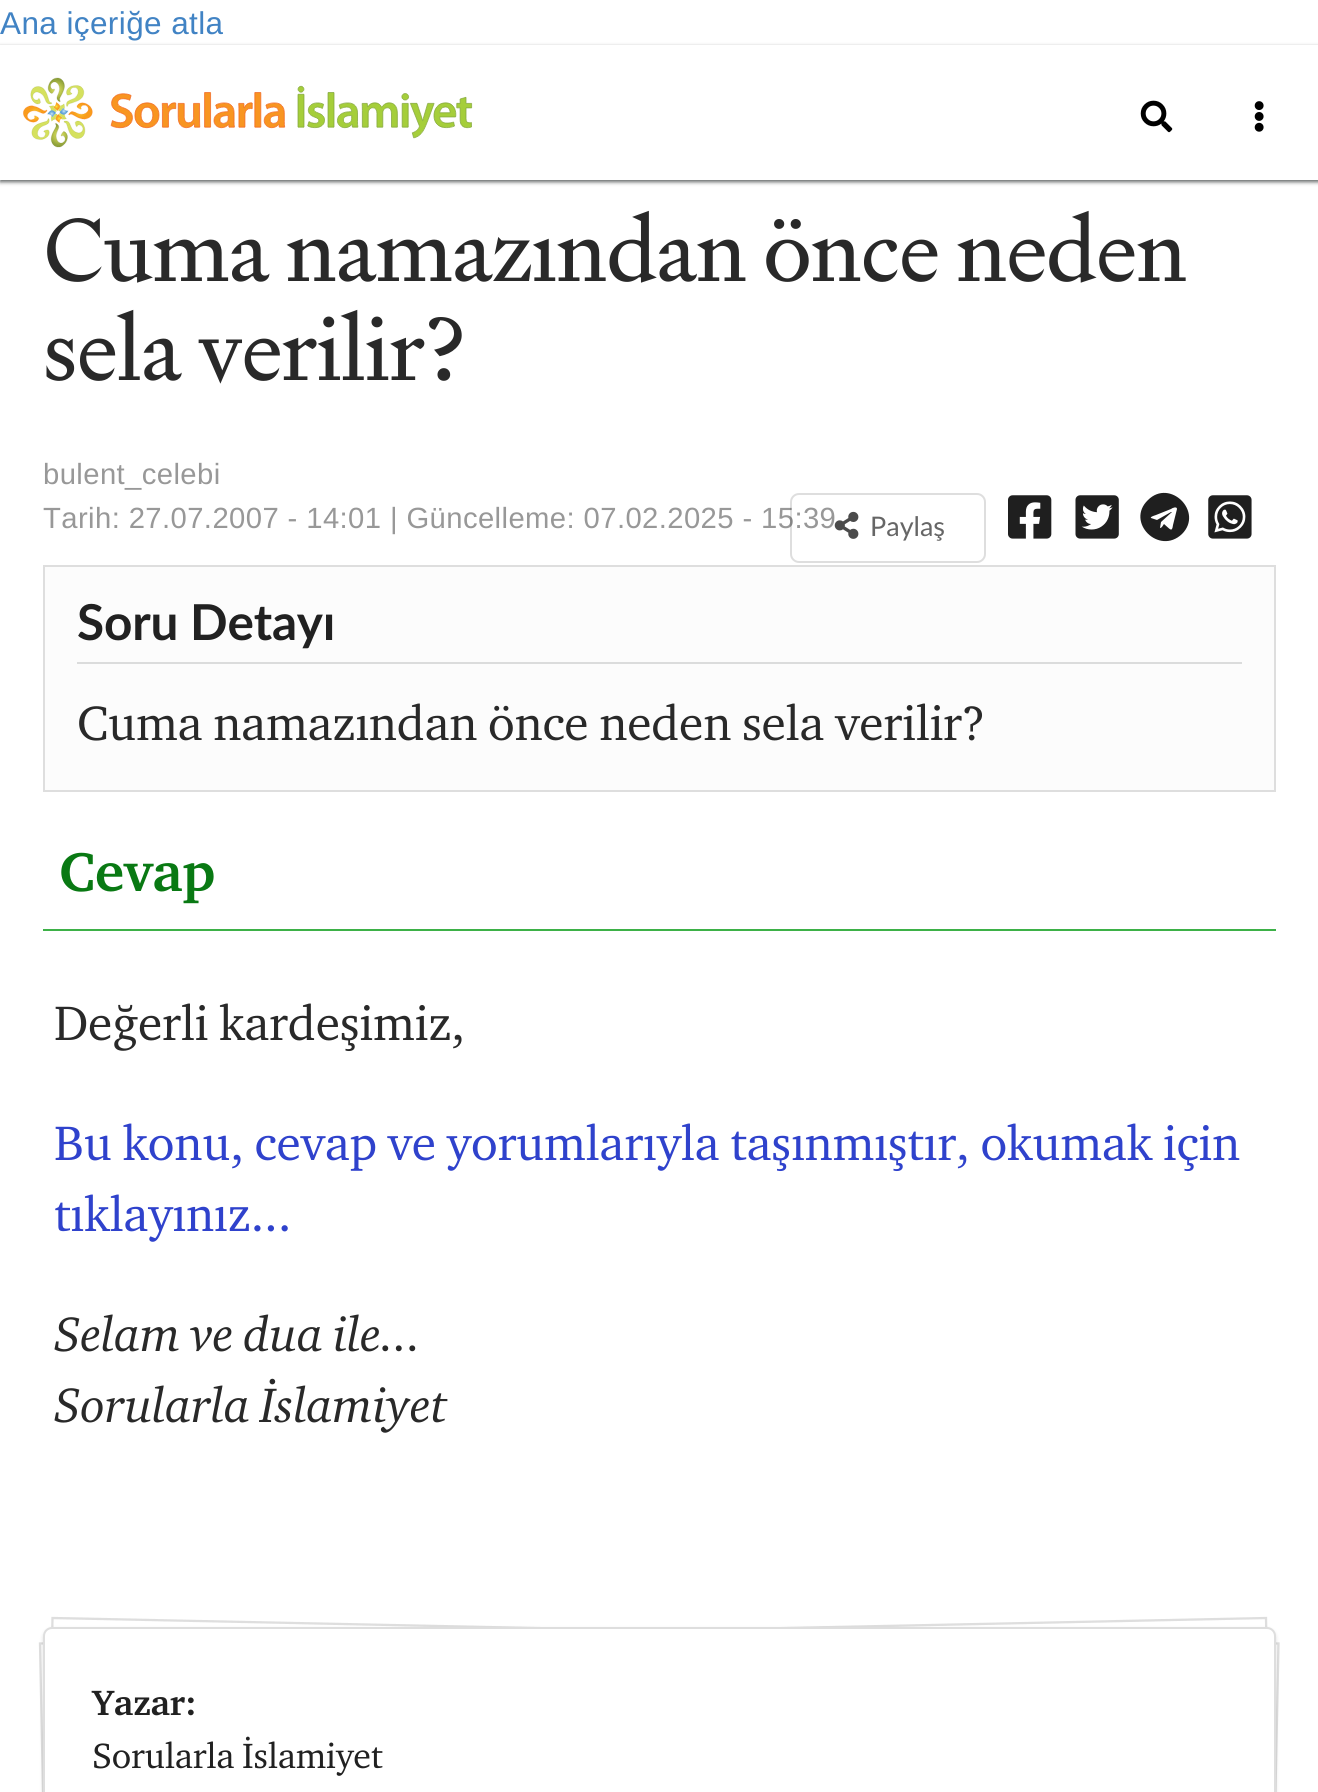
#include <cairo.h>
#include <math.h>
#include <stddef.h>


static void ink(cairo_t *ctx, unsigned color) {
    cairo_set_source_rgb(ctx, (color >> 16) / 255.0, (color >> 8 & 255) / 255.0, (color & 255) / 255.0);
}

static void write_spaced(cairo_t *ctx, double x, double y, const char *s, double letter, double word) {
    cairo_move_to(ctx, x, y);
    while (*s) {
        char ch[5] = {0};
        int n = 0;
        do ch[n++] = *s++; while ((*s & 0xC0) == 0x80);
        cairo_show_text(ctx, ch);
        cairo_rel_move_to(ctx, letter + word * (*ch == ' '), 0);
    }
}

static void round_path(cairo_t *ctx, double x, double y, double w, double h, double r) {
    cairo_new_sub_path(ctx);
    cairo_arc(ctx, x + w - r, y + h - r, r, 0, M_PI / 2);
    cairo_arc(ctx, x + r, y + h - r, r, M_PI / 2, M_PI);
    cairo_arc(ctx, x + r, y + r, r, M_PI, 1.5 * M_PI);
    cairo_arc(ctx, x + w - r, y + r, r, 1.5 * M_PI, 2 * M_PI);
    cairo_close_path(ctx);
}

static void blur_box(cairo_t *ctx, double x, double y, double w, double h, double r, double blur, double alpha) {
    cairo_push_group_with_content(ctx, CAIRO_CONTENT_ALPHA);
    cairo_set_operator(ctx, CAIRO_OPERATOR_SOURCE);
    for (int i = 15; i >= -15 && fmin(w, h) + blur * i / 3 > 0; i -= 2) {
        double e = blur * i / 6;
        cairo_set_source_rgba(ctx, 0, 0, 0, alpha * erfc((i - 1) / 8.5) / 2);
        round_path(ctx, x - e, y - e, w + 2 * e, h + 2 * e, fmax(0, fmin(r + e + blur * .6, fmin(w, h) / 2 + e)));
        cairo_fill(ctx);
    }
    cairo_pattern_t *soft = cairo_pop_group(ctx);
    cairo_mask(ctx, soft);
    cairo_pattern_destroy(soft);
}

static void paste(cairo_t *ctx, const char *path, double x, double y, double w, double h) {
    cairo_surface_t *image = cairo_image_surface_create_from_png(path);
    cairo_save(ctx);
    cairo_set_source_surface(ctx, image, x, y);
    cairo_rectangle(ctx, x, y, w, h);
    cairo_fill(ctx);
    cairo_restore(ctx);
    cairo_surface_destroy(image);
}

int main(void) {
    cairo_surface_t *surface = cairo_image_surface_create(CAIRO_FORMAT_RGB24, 1318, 1792);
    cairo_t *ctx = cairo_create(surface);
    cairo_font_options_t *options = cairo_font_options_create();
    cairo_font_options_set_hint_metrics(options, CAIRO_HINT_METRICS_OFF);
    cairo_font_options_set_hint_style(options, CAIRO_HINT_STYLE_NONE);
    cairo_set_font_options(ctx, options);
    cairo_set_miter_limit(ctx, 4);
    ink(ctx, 0xFFFFFF);
    cairo_paint(ctx);
    cairo_save(ctx);
    cairo_set_fill_rule(ctx, CAIRO_FILL_RULE_EVEN_ODD);
    cairo_new_path(ctx);
    cairo_move_to(ctx, 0, 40);
    cairo_line_to(ctx, 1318, 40);
    cairo_line_to(ctx, 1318, 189);
    cairo_line_to(ctx, 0, 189);
    cairo_close_path(ctx);
    cairo_move_to(ctx, 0, 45);
    cairo_line_to(ctx, 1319, 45);
    cairo_line_to(ctx, 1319, 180);
    cairo_line_to(ctx, 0, 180);
    cairo_close_path(ctx);
    cairo_clip(ctx);
    ink(ctx, 0x2D3232);
    blur_box(ctx, 0, 47, 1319, 135, 0, 2, 0.75);
    cairo_restore(ctx);
    cairo_select_font_face(ctx, "Liberation Sans", CAIRO_FONT_SLANT_NORMAL, CAIRO_FONT_WEIGHT_NORMAL);
    cairo_set_font_size(ctx, 31.5);
    ink(ctx, 0x4183C4);
    write_spaced(ctx, 0, 34, "Ana içeriğe atla", 0.4, 0);
    paste(ctx, "media/1.png", 23, 77, 450, 71);
    paste(ctx, "media/2.png", 1140, 100, 33, 33);
    paste(ctx, "media/3.png", 1254, 101, 10, 31);
    cairo_select_font_face(ctx, "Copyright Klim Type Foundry", CAIRO_FONT_SLANT_NORMAL, CAIRO_FONT_WEIGHT_NORMAL);
    cairo_set_font_size(ctx, 90);
    ink(ctx, 0x292929);
    write_spaced(ctx, 43, 281, "Cuma namazından önce neden", -0.9, 0);
    write_spaced(ctx, 43, 380, "sela verilir?", -0.9, 0);
    cairo_select_font_face(ctx, "Liberation Sans", CAIRO_FONT_SLANT_NORMAL, CAIRO_FONT_WEIGHT_NORMAL);
    cairo_set_font_size(ctx, 29.25);
    ink(ctx, 0x989898);
    write_spaced(ctx, 43, 484, "bulent_celebi", 0.4, 0);
    write_spaced(ctx, 43, 528, "Tarih: 27.07.2007 - 14:01 | Güncelleme: 07.02.2025 - 15:39", 0.4, 0);
    round_path(ctx, 791, 494, 194, 68, 8);
    cairo_set_source_rgba(ctx, 0.133, 0.141, 0.149, 0.15);
    cairo_stroke(ctx);
    paste(ctx, "media/4.png", 834, 511, 25, 28);
    cairo_select_font_face(ctx, "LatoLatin", CAIRO_FONT_SLANT_NORMAL, CAIRO_FONT_WEIGHT_NORMAL);
    cairo_set_font_size(ctx, 27);
    ink(ctx, 0x666666);
    cairo_move_to(ctx, 870, 536);
    cairo_show_text(ctx, "Paylaş");
    paste(ctx, "media/5.png", 1008, 495, 44, 44);
    paste(ctx, "media/6.png", 1075, 495, 44, 44);
    ink(ctx, 0x1F1F1F);
    cairo_new_path(ctx);
    cairo_move_to(ctx, 1148, 500);
    cairo_curve_to(ctx, 1170, 478, 1204, 512, 1182, 534);
    cairo_curve_to(ctx, 1159, 556, 1125, 522, 1148, 500);
    cairo_close_path(ctx);
    cairo_move_to(ctx, 1177, 509);
    cairo_curve_to(ctx, 1177, 506, 1172, 508, 1171, 509);
    cairo_line_to(ctx, 1156, 515);
    cairo_curve_to(ctx, 1153, 516, 1150, 517, 1151, 518);
    cairo_line_to(ctx, 1157, 520);
    cairo_line_to(ctx, 1171, 512);
    cairo_line_to(ctx, 1172, 512);
    cairo_line_to(ctx, 1161, 522);
    cairo_line_to(ctx, 1160, 528);
    cairo_curve_to(ctx, 1162, 528, 1163, 525, 1164, 524);
    cairo_curve_to(ctx, 1170, 529, 1172, 533, 1173, 525);
    cairo_close_path(ctx);
    cairo_fill(ctx);
    paste(ctx, "media/7.png", 1208, 495, 44, 44);
    ink(ctx, 0xFCFCFC);
    cairo_rectangle(ctx, 44, 566, 1231, 225);
    cairo_fill_preserve(ctx);
    ink(ctx, 0xDEDEDE);
    cairo_stroke(ctx);
    ink(ctx, 0xDBDCDC);
    cairo_rectangle(ctx, 77, 662, 1165, 2);
    cairo_fill(ctx);
    cairo_select_font_face(ctx, "LatoLatin", CAIRO_FONT_SLANT_NORMAL, CAIRO_FONT_WEIGHT_BOLD);
    cairo_set_font_size(ctx, 49.5);
    ink(ctx, 0x212121);
    write_spaced(ctx, 77, 640, "Soru Detayı", -0.2, 0);
    cairo_select_font_face(ctx, "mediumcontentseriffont", CAIRO_FONT_SLANT_NORMAL, CAIRO_FONT_WEIGHT_NORMAL);
    ink(ctx, 0x292929);
    write_spaced(ctx, 77, 740, "Cuma namazından önce neden sela verilir?", -0.2, 0);
    ink(ctx, 0x3DB148);
    cairo_rectangle(ctx, 43, 929, 1233, 2);
    cairo_fill(ctx);
    cairo_select_font_face(ctx, "mediumcontentseriffont", CAIRO_FONT_SLANT_NORMAL, CAIRO_FONT_WEIGHT_BOLD);
    cairo_set_font_size(ctx, 56);
    ink(ctx, 0x097913);
    write_spaced(ctx, 59, 891, "Cevap", -0.2, 0);
    cairo_select_font_face(ctx, "mediumcontentseriffont", CAIRO_FONT_SLANT_NORMAL, CAIRO_FONT_WEIGHT_NORMAL);
    cairo_set_font_size(ctx, 49.5);
    ink(ctx, 0x292929);
    write_spaced(ctx, 54, 1040, "Değerli kardeşimiz,", -0.2, 0);
    ink(ctx, 0x2F42CC);
    write_spaced(ctx, 54, 1160, "Bu konu, cevap ve yorumlarıyla taşınmıştır, okumak için", -0.2, 0);
    write_spaced(ctx, 54, 1231, "tıklayınız...", -0.2, 0);
    cairo_select_font_face(ctx, "mediumcontentseriffont", CAIRO_FONT_SLANT_ITALIC, CAIRO_FONT_WEIGHT_NORMAL);
    ink(ctx, 0x292929);
    write_spaced(ctx, 54, 1351, "Selam ve dua ile...", -0.2, 0);
    write_spaced(ctx, 54, 1422, "Sorularla İslamiyet", -0.2, 0);
    cairo_new_path(ctx);
    cairo_move_to(ctx, 40, 1643.5);
    cairo_line_to(ctx, 1266, 1618);
    cairo_line_to(ctx, 1278.5, 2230.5);
    cairo_line_to(ctx, 52.5, 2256.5);
    cairo_close_path(ctx);
    ink(ctx, 0xDEDEDE);
    cairo_set_line_width(ctx, 2.3);
    cairo_stroke(ctx);
    ink(ctx, 0xFFFFFF);
    cairo_new_path(ctx);
    cairo_move_to(ctx, 52, 1617);
    cairo_line_to(ctx, 1280, 1642);
    cairo_line_to(ctx, 1267, 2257);
    cairo_line_to(ctx, 39, 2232);
    cairo_close_path(ctx);
    cairo_fill(ctx);
    cairo_new_path(ctx);
    cairo_move_to(ctx, 52.5, 1618);
    cairo_line_to(ctx, 1278.5, 1643.5);
    cairo_line_to(ctx, 1266, 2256.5);
    cairo_line_to(ctx, 40, 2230.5);
    cairo_close_path(ctx);
    cairo_set_source_rgba(ctx, 0.133, 0.141, 0.149, 0.15);
    cairo_stroke(ctx);
    ink(ctx, 0x222426);
    blur_box(ctx, 43, 1629, 1233, 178, 9, 2, 0.15);
    ink(ctx, 0xFFFFFF);
    round_path(ctx, 43, 1627, 1233, 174, 9);
    cairo_fill(ctx);
    round_path(ctx, 44, 1628, 1231, 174, 8);
    cairo_set_source_rgba(ctx, 0.133, 0.141, 0.149, 0.15);
    cairo_set_line_width(ctx, 2);
    cairo_stroke(ctx);
    cairo_select_font_face(ctx, "mediumcontentseriffont", CAIRO_FONT_SLANT_NORMAL, CAIRO_FONT_WEIGHT_BOLD);
    cairo_set_font_size(ctx, 36);
    ink(ctx, 0x212121);
    write_spaced(ctx, 92, 1715, "Yazar:", -0.2, 0);
    cairo_select_font_face(ctx, "mediumcontentseriffont", CAIRO_FONT_SLANT_NORMAL, CAIRO_FONT_WEIGHT_NORMAL);
    write_spaced(ctx, 92, 1768, "Sorularla İslamiyet", -0.2, 0);
    cairo_surface_write_to_png(surface, "image.png");
    cairo_font_options_destroy(options);
    cairo_destroy(ctx);
    cairo_surface_destroy(surface);
    return 0;
}
